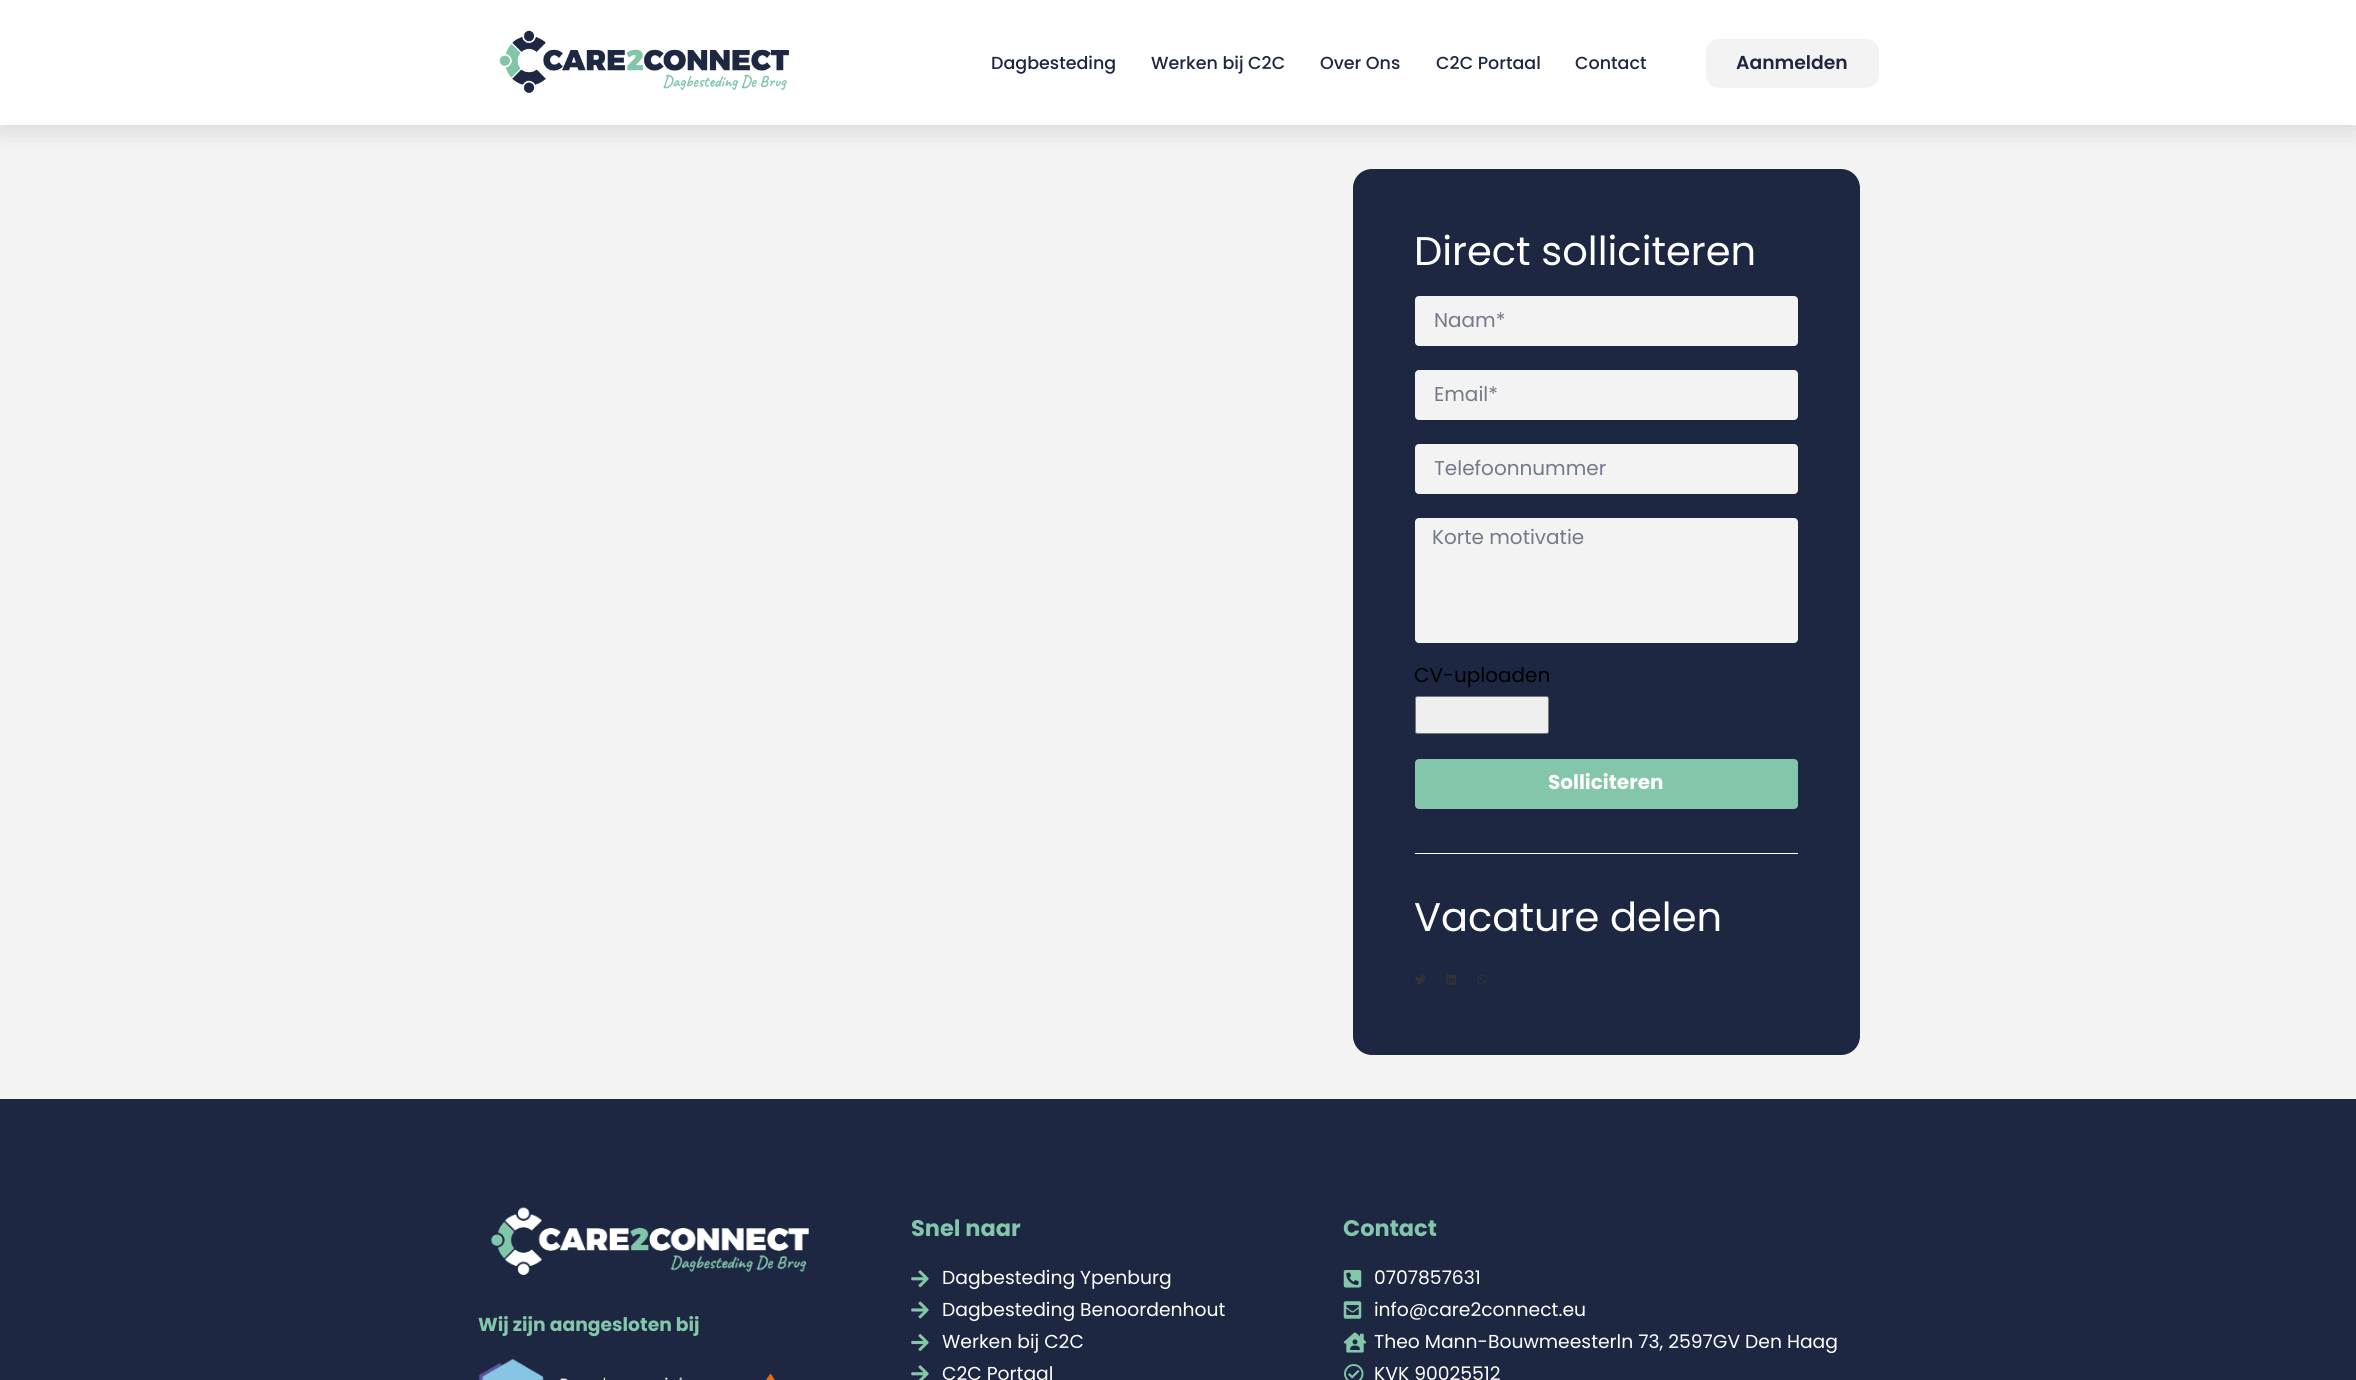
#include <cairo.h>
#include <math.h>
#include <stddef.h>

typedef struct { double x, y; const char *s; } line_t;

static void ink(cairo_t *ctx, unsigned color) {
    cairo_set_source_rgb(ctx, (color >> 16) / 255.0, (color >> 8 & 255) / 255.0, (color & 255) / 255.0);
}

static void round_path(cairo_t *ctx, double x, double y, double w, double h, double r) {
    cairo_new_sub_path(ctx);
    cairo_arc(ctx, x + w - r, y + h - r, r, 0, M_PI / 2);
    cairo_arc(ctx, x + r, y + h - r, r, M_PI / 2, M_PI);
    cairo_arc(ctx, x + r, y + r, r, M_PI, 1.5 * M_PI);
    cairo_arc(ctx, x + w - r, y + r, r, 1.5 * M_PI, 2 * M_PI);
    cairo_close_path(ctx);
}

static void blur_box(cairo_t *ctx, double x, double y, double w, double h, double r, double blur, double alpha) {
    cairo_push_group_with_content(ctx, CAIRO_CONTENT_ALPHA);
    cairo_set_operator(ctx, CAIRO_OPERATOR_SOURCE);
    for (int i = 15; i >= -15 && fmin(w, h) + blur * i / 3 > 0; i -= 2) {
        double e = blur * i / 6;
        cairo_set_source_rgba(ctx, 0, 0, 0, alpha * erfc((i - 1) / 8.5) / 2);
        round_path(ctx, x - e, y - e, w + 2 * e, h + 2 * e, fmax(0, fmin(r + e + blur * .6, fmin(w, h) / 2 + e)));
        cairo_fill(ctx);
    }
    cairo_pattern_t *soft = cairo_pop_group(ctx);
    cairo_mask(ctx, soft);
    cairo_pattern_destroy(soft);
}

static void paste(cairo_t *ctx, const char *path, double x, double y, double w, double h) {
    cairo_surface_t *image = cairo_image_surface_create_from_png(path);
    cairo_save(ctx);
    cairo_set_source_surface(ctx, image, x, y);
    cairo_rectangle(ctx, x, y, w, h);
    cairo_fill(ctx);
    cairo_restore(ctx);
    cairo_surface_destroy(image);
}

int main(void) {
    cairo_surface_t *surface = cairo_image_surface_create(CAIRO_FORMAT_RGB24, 2356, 1380);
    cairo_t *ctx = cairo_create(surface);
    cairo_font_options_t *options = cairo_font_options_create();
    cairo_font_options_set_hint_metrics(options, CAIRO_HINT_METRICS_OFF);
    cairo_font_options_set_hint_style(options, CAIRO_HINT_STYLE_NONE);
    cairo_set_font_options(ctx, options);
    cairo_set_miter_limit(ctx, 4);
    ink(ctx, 0xF3F3F3);
    cairo_paint(ctx);
    ink(ctx, 0x1D2742);
    round_path(ctx, 1353, 169, 507, 886, 19);
    cairo_fill(ctx);
    ink(ctx, 0x000000);
    blur_box(ctx, 0, 0, 2356, 125, 0, 15, 0.15);
    ink(ctx, 0xFFFFFF);
    cairo_rectangle(ctx, 0, 0, 2356, 125);
    cairo_fill(ctx);
    paste(ctx, "media/1.png", 499, 30, 290, 64);
    cairo_select_font_face(ctx, "Poppins Medium", CAIRO_FONT_SLANT_NORMAL, CAIRO_FONT_WEIGHT_NORMAL);
    cairo_set_font_size(ctx, 17.5);
    ink(ctx, 0x1D2742);
    {
        static const line_t items[] = {
            {991, 69, "Dagbesteding"},
            {1151, 69, "Werken bij C2C"},
            {1320, 69, "Over Ons"},
            {1436, 69, "C2C Portaal"},
            {1575, 69, "Contact"},
        };
        for (size_t i = 0; i < sizeof items / sizeof *items; i++) {
            cairo_move_to(ctx, items[i].x, items[i].y);
            cairo_show_text(ctx, items[i].s);
        }
    }
    ink(ctx, 0xF3F3F3);
    round_path(ctx, 1706, 39, 173, 49, 13);
    cairo_fill(ctx);
    cairo_select_font_face(ctx, "Poppins SemiBold", CAIRO_FONT_SLANT_NORMAL, CAIRO_FONT_WEIGHT_NORMAL);
    cairo_set_font_size(ctx, 18.75);
    ink(ctx, 0x1D2742);
    cairo_move_to(ctx, 1736, 69);
    cairo_show_text(ctx, "Aanmelden");
    cairo_select_font_face(ctx, "Poppins", CAIRO_FONT_SLANT_NORMAL, CAIRO_FONT_WEIGHT_NORMAL);
    cairo_set_font_size(ctx, 40);
    ink(ctx, 0xFFFFFF);
    cairo_move_to(ctx, 1414, 265);
    cairo_show_text(ctx, "Direct solliciteren");
    ink(ctx, 0xF3F3F3);
    round_path(ctx, 1415, 296, 383, 50, 4);
    cairo_fill(ctx);
    cairo_set_font_size(ctx, 20);
    ink(ctx, 0x737989);
    cairo_move_to(ctx, 1434, 327);
    cairo_show_text(ctx, "Naam*");
    ink(ctx, 0xF3F3F3);
    round_path(ctx, 1415, 370, 383, 50, 4);
    cairo_fill(ctx);
    ink(ctx, 0x737989);
    cairo_move_to(ctx, 1434, 401);
    cairo_show_text(ctx, "Email*");
    ink(ctx, 0xF3F3F3);
    round_path(ctx, 1415, 444, 383, 50, 4);
    cairo_fill(ctx);
    ink(ctx, 0x737989);
    cairo_move_to(ctx, 1434, 475);
    cairo_show_text(ctx, "Telefoonnummer");
    ink(ctx, 0xF3F3F3);
    round_path(ctx, 1415, 518, 383, 125, 4);
    cairo_fill(ctx);
    ink(ctx, 0x737989);
    cairo_move_to(ctx, 1432, 544);
    cairo_show_text(ctx, "Korte motivatie");
    ink(ctx, 0x000000);
    cairo_move_to(ctx, 1414, 682);
    cairo_show_text(ctx, "CV-uploaden");
    ink(ctx, 0xEFEFEF);
    round_path(ctx, 1415.5, 696.5, 133, 37, 2);
    cairo_fill_preserve(ctx);
    ink(ctx, 0x767676);
    cairo_set_line_width(ctx, 1);
    cairo_stroke(ctx);
    ink(ctx, 0x83C6A9);
    round_path(ctx, 1415, 759, 383, 50, 4);
    cairo_fill(ctx);
    cairo_select_font_face(ctx, "Poppins", CAIRO_FONT_SLANT_NORMAL, CAIRO_FONT_WEIGHT_BOLD);
    ink(ctx, 0xFFFFFF);
    cairo_move_to(ctx, 1548, 789);
    cairo_show_text(ctx, "Solliciteren");
    cairo_rectangle(ctx, 1415, 853, 383, 1);
    cairo_fill(ctx);
    cairo_select_font_face(ctx, "Poppins", CAIRO_FONT_SLANT_NORMAL, CAIRO_FONT_WEIGHT_NORMAL);
    cairo_set_font_size(ctx, 40);
    cairo_move_to(ctx, 1414, 931);
    cairo_show_text(ctx, "Vacature delen");
    paste(ctx, "media/2.png", 1415, 975, 11, 9);
    paste(ctx, "media/3.png", 1446, 974, 10, 11);
    paste(ctx, "media/4.png", 1477, 974, 11, 11);
    ink(ctx, 0x1D2742);
    cairo_rectangle(ctx, 0, 1099, 2356, 281);
    cairo_fill(ctx);
    paste(ctx, "media/5.png", 491, 1207, 318, 69);
    cairo_select_font_face(ctx, "Poppins", CAIRO_FONT_SLANT_NORMAL, CAIRO_FONT_WEIGHT_BOLD);
    cairo_set_font_size(ctx, 18.75);
    ink(ctx, 0x83C6A9);
    cairo_move_to(ctx, 478, 1331);
    cairo_show_text(ctx, "Wij zijn aangesloten bij");
    paste(ctx, "media/6.png", 478, 1358, 205, 22);
    paste(ctx, "media/7.png", 766, 1373, 9, 7);
    cairo_set_font_size(ctx, 22.5);
    cairo_move_to(ctx, 911, 1236);
    cairo_show_text(ctx, "Snel naar");
    paste(ctx, "media/8.png", 911, 1270, 18, 18);
    cairo_select_font_face(ctx, "Poppins", CAIRO_FONT_SLANT_NORMAL, CAIRO_FONT_WEIGHT_NORMAL);
    cairo_set_font_size(ctx, 18.75);
    ink(ctx, 0xFFFFFF);
    cairo_move_to(ctx, 942, 1284);
    cairo_show_text(ctx, "Dagbesteding Ypenburg");
    paste(ctx, "media/9.png", 911, 1301, 18, 18);
    cairo_move_to(ctx, 942, 1316);
    cairo_show_text(ctx, "Dagbesteding Benoordenhout");
    paste(ctx, "media/10.png", 911, 1334, 18, 17);
    cairo_move_to(ctx, 942, 1348);
    cairo_show_text(ctx, "Werken bij C2C");
    paste(ctx, "media/11.png", 911, 1365, 18, 15);
    cairo_move_to(ctx, 942, 1380);
    cairo_show_text(ctx, "C2C Portaal");
    cairo_select_font_face(ctx, "Poppins", CAIRO_FONT_SLANT_NORMAL, CAIRO_FONT_WEIGHT_BOLD);
    cairo_set_font_size(ctx, 22.5);
    ink(ctx, 0x83C6A9);
    cairo_move_to(ctx, 1343, 1236);
    cairo_show_text(ctx, "Contact");
    paste(ctx, "media/12.png", 1343, 1270, 19, 18);
    cairo_select_font_face(ctx, "Poppins", CAIRO_FONT_SLANT_NORMAL, CAIRO_FONT_WEIGHT_NORMAL);
    cairo_set_font_size(ctx, 18.75);
    ink(ctx, 0xFFFFFF);
    cairo_move_to(ctx, 1374, 1284);
    cairo_show_text(ctx, "0707857631");
    paste(ctx, "media/13.png", 1343, 1301, 19, 18);
    cairo_move_to(ctx, 1374, 1316);
    cairo_show_text(ctx, "info@care2connect.eu");
    paste(ctx, "media/14.png", 1343, 1332, 24, 21);
    cairo_move_to(ctx, 1374, 1348);
    cairo_show_text(ctx, "Theo Mann-Bouwmeesterln 73, 2597GV Den Haag");
    paste(ctx, "media/15.png", 1344, 1364, 20, 16);
    cairo_move_to(ctx, 1374, 1380);
    cairo_show_text(ctx, "KVK 90025512");
    cairo_surface_write_to_png(surface, "image.png");
    cairo_font_options_destroy(options);
    cairo_destroy(ctx);
    cairo_surface_destroy(surface);
    return 0;
}
